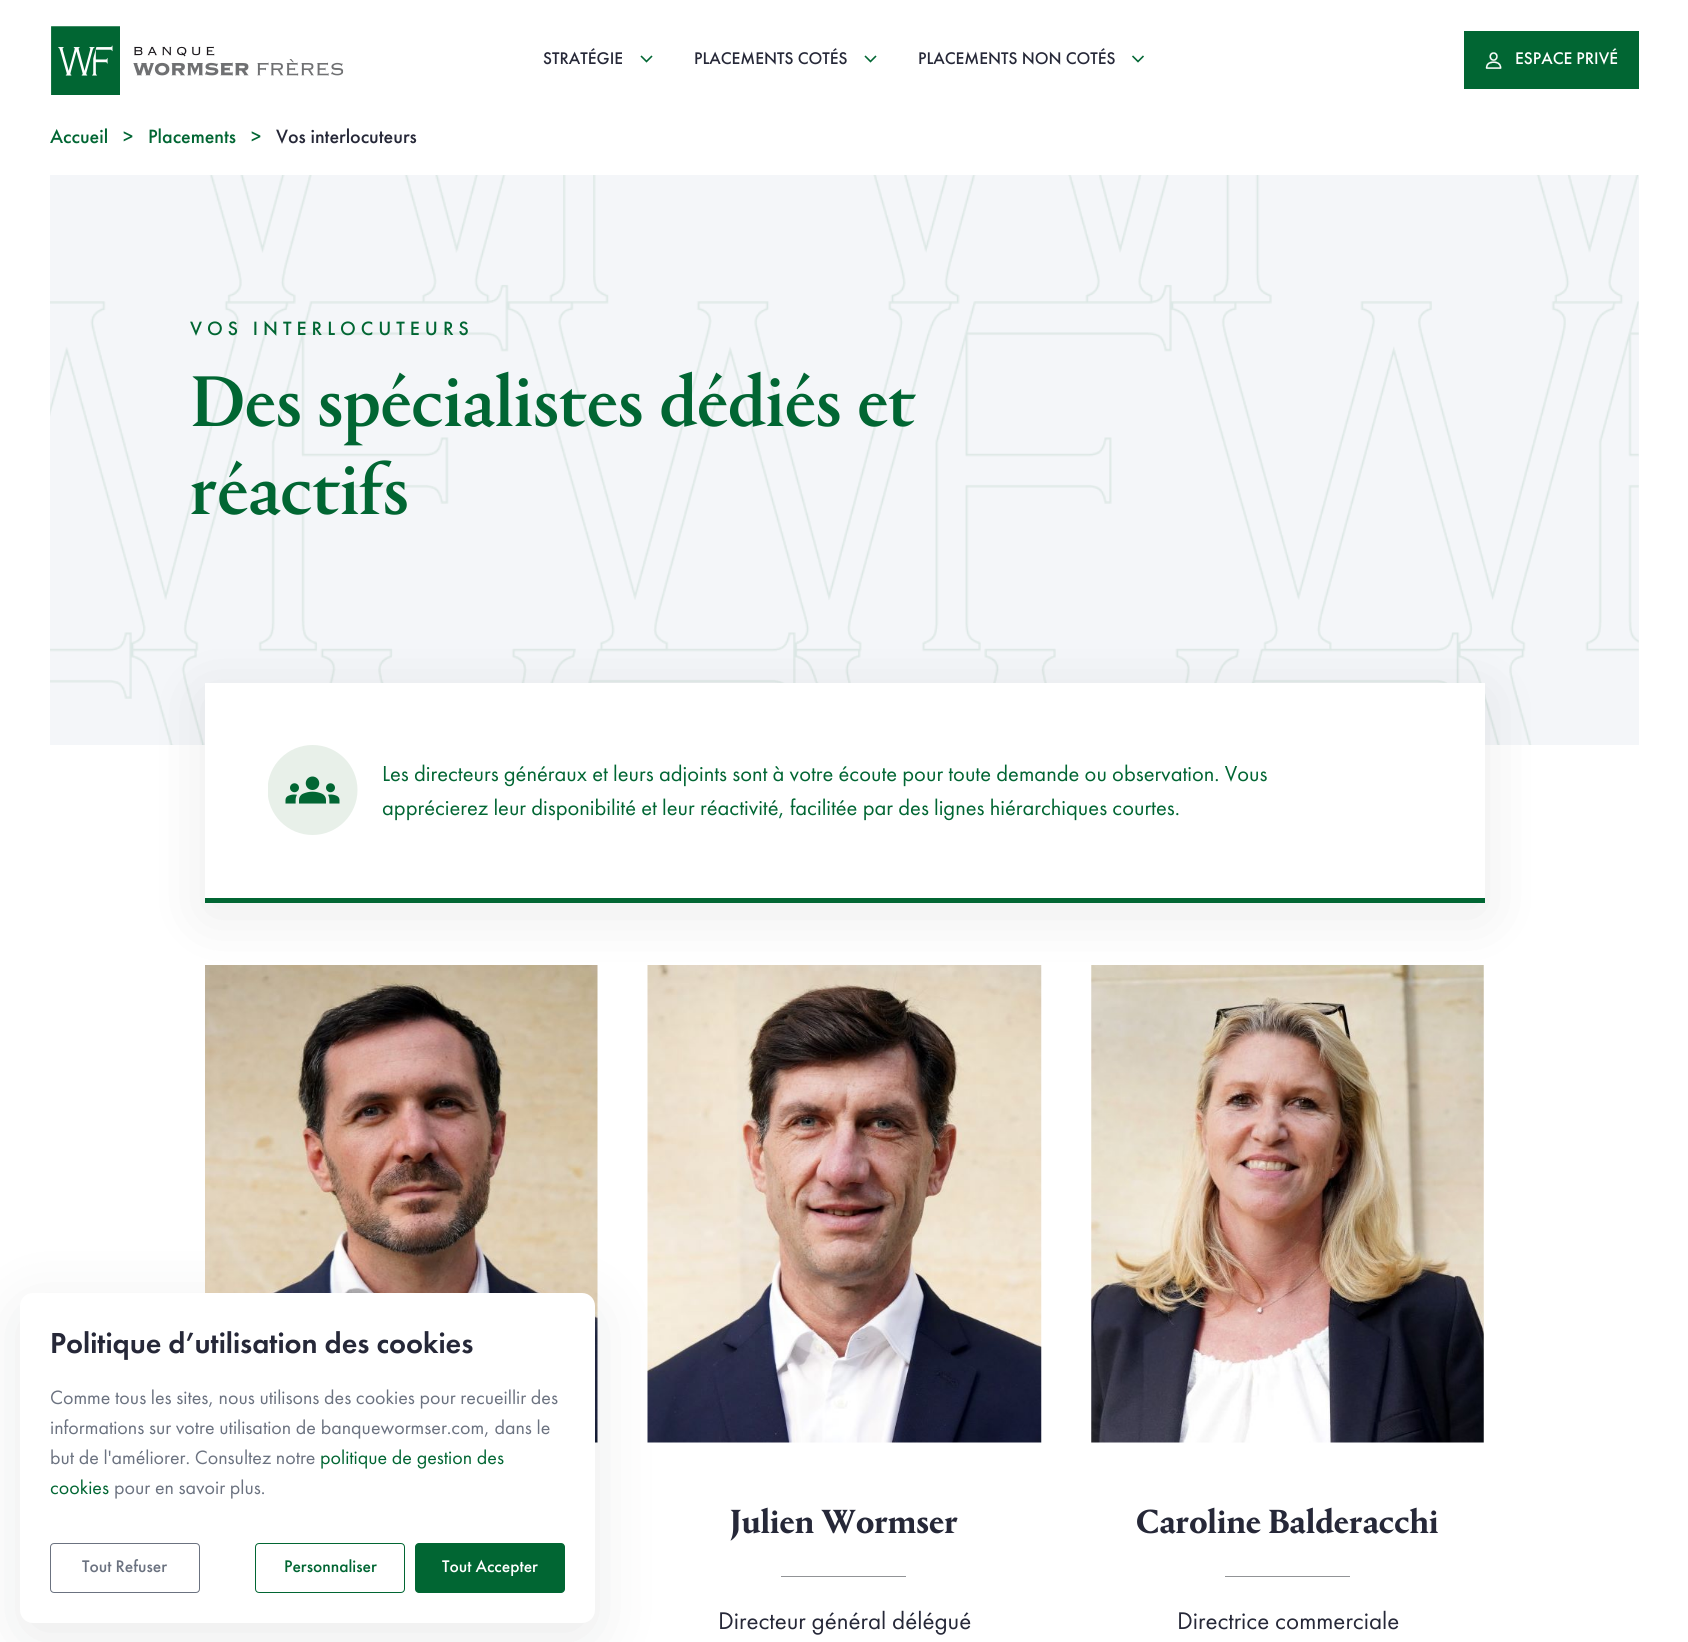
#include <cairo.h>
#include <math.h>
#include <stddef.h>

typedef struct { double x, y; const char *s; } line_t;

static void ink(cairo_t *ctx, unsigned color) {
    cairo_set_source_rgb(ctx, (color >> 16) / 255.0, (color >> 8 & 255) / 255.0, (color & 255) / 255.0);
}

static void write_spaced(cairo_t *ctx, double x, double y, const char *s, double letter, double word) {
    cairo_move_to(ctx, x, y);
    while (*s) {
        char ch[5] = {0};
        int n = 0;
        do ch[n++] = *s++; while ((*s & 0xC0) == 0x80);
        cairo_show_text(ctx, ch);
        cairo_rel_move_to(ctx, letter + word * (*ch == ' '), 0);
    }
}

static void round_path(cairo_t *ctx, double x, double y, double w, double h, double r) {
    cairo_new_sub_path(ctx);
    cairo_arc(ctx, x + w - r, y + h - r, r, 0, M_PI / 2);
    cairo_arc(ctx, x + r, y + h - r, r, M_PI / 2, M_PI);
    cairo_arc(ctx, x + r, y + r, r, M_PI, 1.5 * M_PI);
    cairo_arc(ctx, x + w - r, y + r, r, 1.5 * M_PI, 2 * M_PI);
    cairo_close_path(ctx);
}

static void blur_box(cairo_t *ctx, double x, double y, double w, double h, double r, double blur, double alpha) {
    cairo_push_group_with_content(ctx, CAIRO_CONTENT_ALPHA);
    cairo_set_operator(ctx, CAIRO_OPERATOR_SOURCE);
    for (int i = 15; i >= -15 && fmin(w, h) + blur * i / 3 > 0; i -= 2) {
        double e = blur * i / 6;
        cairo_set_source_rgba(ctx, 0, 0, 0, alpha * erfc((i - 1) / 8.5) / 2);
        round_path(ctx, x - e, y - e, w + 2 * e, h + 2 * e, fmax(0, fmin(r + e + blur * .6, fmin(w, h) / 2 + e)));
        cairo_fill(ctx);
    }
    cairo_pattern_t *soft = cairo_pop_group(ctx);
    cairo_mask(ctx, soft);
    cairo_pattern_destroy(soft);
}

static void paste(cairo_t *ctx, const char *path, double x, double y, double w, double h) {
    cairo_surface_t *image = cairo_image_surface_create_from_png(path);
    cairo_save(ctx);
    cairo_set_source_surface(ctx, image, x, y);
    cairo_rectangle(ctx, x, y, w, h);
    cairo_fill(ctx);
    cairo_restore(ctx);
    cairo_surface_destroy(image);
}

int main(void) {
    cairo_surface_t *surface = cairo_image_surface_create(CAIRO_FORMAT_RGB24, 1688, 1642);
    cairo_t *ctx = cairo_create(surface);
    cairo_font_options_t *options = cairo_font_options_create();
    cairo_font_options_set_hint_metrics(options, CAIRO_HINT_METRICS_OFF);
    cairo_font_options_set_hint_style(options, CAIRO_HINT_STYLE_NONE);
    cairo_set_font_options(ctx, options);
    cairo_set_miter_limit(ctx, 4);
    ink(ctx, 0xFFFFFF);
    cairo_paint(ctx);
    paste(ctx, "media/1.png", 51, 26, 293, 69);
    cairo_select_font_face(ctx, "Futura PT Medium", CAIRO_FONT_SLANT_NORMAL, CAIRO_FONT_WEIGHT_NORMAL);
    cairo_set_font_size(ctx, 17.5);
    ink(ctx, 0x262838);
    cairo_move_to(ctx, 543, 64);
    cairo_show_text(ctx, "STRATÉGIE");
    cairo_new_path(ctx);
    cairo_move_to(ctx, 641, 56);
    cairo_line_to(ctx, 646.5, 61.5);
    cairo_line_to(ctx, 652, 56);
    ink(ctx, 0x016633);
    cairo_set_line_width(ctx, 1.6);
    cairo_stroke(ctx);
    ink(ctx, 0x262838);
    cairo_move_to(ctx, 694, 64);
    cairo_show_text(ctx, "PLACEMENTS COTÉS");
    cairo_new_path(ctx);
    cairo_move_to(ctx, 865, 56);
    cairo_line_to(ctx, 870.5, 61.5);
    cairo_line_to(ctx, 876, 56);
    ink(ctx, 0x016633);
    cairo_stroke(ctx);
    ink(ctx, 0x262838);
    cairo_move_to(ctx, 918, 64);
    cairo_show_text(ctx, "PLACEMENTS NON COTÉS");
    cairo_new_path(ctx);
    cairo_move_to(ctx, 1132.5, 56);
    cairo_line_to(ctx, 1138, 61.5);
    cairo_line_to(ctx, 1143.5, 56);
    ink(ctx, 0x016633);
    cairo_stroke(ctx);
    cairo_rectangle(ctx, 1464, 31, 175, 58);
    cairo_fill(ctx);
    paste(ctx, "media/2.png", 1485, 52, 17, 17);
    ink(ctx, 0xFFFFFF);
    cairo_move_to(ctx, 1515, 64);
    cairo_show_text(ctx, "ESPACE PRIVÉ");
    cairo_set_font_size(ctx, 20);
    ink(ctx, 0x016633);
    {
        static const line_t items[] = {
            {50, 143, "Accueil"},
            {123, 143, ">"},
            {148, 143, "Placements"},
            {251, 143, ">"},
        };
        for (size_t i = 0; i < sizeof items / sizeof *items; i++) {
            cairo_move_to(ctx, items[i].x, items[i].y);
            cairo_show_text(ctx, items[i].s);
        }
    }
    ink(ctx, 0x262838);
    cairo_move_to(ctx, 276, 143);
    cairo_show_text(ctx, "Vos interlocuteurs");
    ink(ctx, 0xF4F6F9);
    cairo_rectangle(ctx, 50, 175, 1589, 570);
    cairo_fill(ctx);
    paste(ctx, "media/3.png", 50, 175, 1589, 570);
    ink(ctx, 0x016633);
    write_spaced(ctx, 190, 335, "VOS INTERLOCUTEURS", 5, 0);
    cairo_select_font_face(ctx, "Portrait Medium", CAIRO_FONT_SLANT_NORMAL, CAIRO_FONT_WEIGHT_NORMAL);
    cairo_set_font_size(ctx, 75);
    cairo_move_to(ctx, 190, 426);
    cairo_show_text(ctx, "Des spécialistes dédiés et");
    cairo_move_to(ctx, 190, 514);
    cairo_show_text(ctx, "réactifs");
    ink(ctx, 0x000000);
    blur_box(ctx, 205, 695, 1280, 220, 0, 31, 0.08);
    ink(ctx, 0xFFFFFF);
    cairo_rectangle(ctx, 205, 683, 1280, 215);
    cairo_fill(ctx);
    ink(ctx, 0x016633);
    cairo_rectangle(ctx, 205, 898, 1280, 5);
    cairo_fill(ctx);
    paste(ctx, "media/4.png", 268, 745, 90, 90);
    cairo_select_font_face(ctx, "Futura PT", CAIRO_FONT_SLANT_NORMAL, CAIRO_FONT_WEIGHT_NORMAL);
    cairo_set_font_size(ctx, 22.5);
    cairo_move_to(ctx, 382, 781);
    cairo_show_text(ctx, "Les directeurs généraux et leurs adjoints sont à votre écoute pour toute demande ou observation. Vous");
    cairo_move_to(ctx, 382, 815);
    cairo_show_text(ctx, "apprécierez leur disponibilité et leur réactivité, facilitée par des lignes hiérarchiques courtes.");
    paste(ctx, "media/5.png", 205, 965, 393, 478);
    paste(ctx, "media/6.png", 647, 965, 395, 478);
    cairo_select_font_face(ctx, "Portrait", CAIRO_FONT_SLANT_NORMAL, CAIRO_FONT_WEIGHT_BOLD);
    cairo_set_font_size(ctx, 35);
    ink(ctx, 0x262838);
    cairo_move_to(ctx, 730, 1533);
    cairo_show_text(ctx, "Julien Wormser");
    ink(ctx, 0x919396);
    cairo_rectangle(ctx, 781, 1576, 125, 1);
    cairo_fill(ctx);
    cairo_select_font_face(ctx, "Futura PT", CAIRO_FONT_SLANT_NORMAL, CAIRO_FONT_WEIGHT_NORMAL);
    cairo_set_font_size(ctx, 25);
    ink(ctx, 0x262838);
    cairo_move_to(ctx, 718, 1629);
    cairo_show_text(ctx, "Directeur général délégué");
    paste(ctx, "media/7.png", 1091, 965, 393, 478);
    cairo_select_font_face(ctx, "Portrait", CAIRO_FONT_SLANT_NORMAL, CAIRO_FONT_WEIGHT_BOLD);
    cairo_set_font_size(ctx, 35);
    cairo_move_to(ctx, 1136, 1533);
    cairo_show_text(ctx, "Caroline Balderacchi");
    ink(ctx, 0x919396);
    cairo_rectangle(ctx, 1225, 1576, 125, 1);
    cairo_fill(ctx);
    cairo_select_font_face(ctx, "Futura PT", CAIRO_FONT_SLANT_NORMAL, CAIRO_FONT_WEIGHT_NORMAL);
    cairo_set_font_size(ctx, 25);
    ink(ctx, 0x262838);
    cairo_move_to(ctx, 1177, 1629);
    cairo_show_text(ctx, "Directrice commerciale");
    ink(ctx, 0x292D35);
    blur_box(ctx, 20, 1308, 575, 330, 13, 31, 0.1);
    ink(ctx, 0xFFFFFF);
    round_path(ctx, 20, 1293, 575, 330, 13);
    cairo_fill(ctx);
    cairo_select_font_face(ctx, "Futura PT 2 Medium", CAIRO_FONT_SLANT_NORMAL, CAIRO_FONT_WEIGHT_NORMAL);
    cairo_set_font_size(ctx, 30);
    ink(ctx, 0x262838);
    cairo_move_to(ctx, 50, 1353);
    cairo_show_text(ctx, "Politique d’utilisation des cookies");
    cairo_select_font_face(ctx, "Futura PT", CAIRO_FONT_SLANT_NORMAL, CAIRO_FONT_WEIGHT_NORMAL);
    cairo_set_font_size(ctx, 20);
    ink(ctx, 0x6B7280);
    {
        static const line_t items[] = {
            {50, 1404, "Comme tous les sites, nous utilisons des cookies pour recueillir des"},
            {50, 1434, "informations sur votre utilisation de banquewormser.com, dans le"},
            {50, 1464, "but de l'améliorer. Consultez notre"},
        };
        for (size_t i = 0; i < sizeof items / sizeof *items; i++) {
            cairo_move_to(ctx, items[i].x, items[i].y);
            cairo_show_text(ctx, items[i].s);
        }
    }
    ink(ctx, 0x016633);
    cairo_move_to(ctx, 320, 1464);
    cairo_show_text(ctx, "politique de gestion des");
    cairo_move_to(ctx, 50, 1494);
    cairo_show_text(ctx, "cookies");
    ink(ctx, 0x6B7280);
    cairo_move_to(ctx, 114, 1494);
    cairo_show_text(ctx, "pour en savoir plus.");
    round_path(ctx, 50.5, 1543.5, 149, 49, 3.5);
    cairo_set_line_width(ctx, 1);
    cairo_stroke(ctx);
    cairo_select_font_face(ctx, "Futura PT Medium", CAIRO_FONT_SLANT_NORMAL, CAIRO_FONT_WEIGHT_NORMAL);
    cairo_set_font_size(ctx, 17.5);
    cairo_move_to(ctx, 82, 1572);
    cairo_show_text(ctx, "Tout Refuser");
    round_path(ctx, 255.5, 1543.5, 149, 49, 3.5);
    ink(ctx, 0x016633);
    cairo_stroke(ctx);
    cairo_move_to(ctx, 284, 1572);
    cairo_show_text(ctx, "Personnaliser");
    round_path(ctx, 415, 1543, 150, 50, 4);
    cairo_fill(ctx);
    ink(ctx, 0xFFFFFF);
    cairo_move_to(ctx, 442, 1572);
    cairo_show_text(ctx, "Tout Accepter");
    cairo_surface_write_to_png(surface, "image.png");
    cairo_font_options_destroy(options);
    cairo_destroy(ctx);
    cairo_surface_destroy(surface);
    return 0;
}
